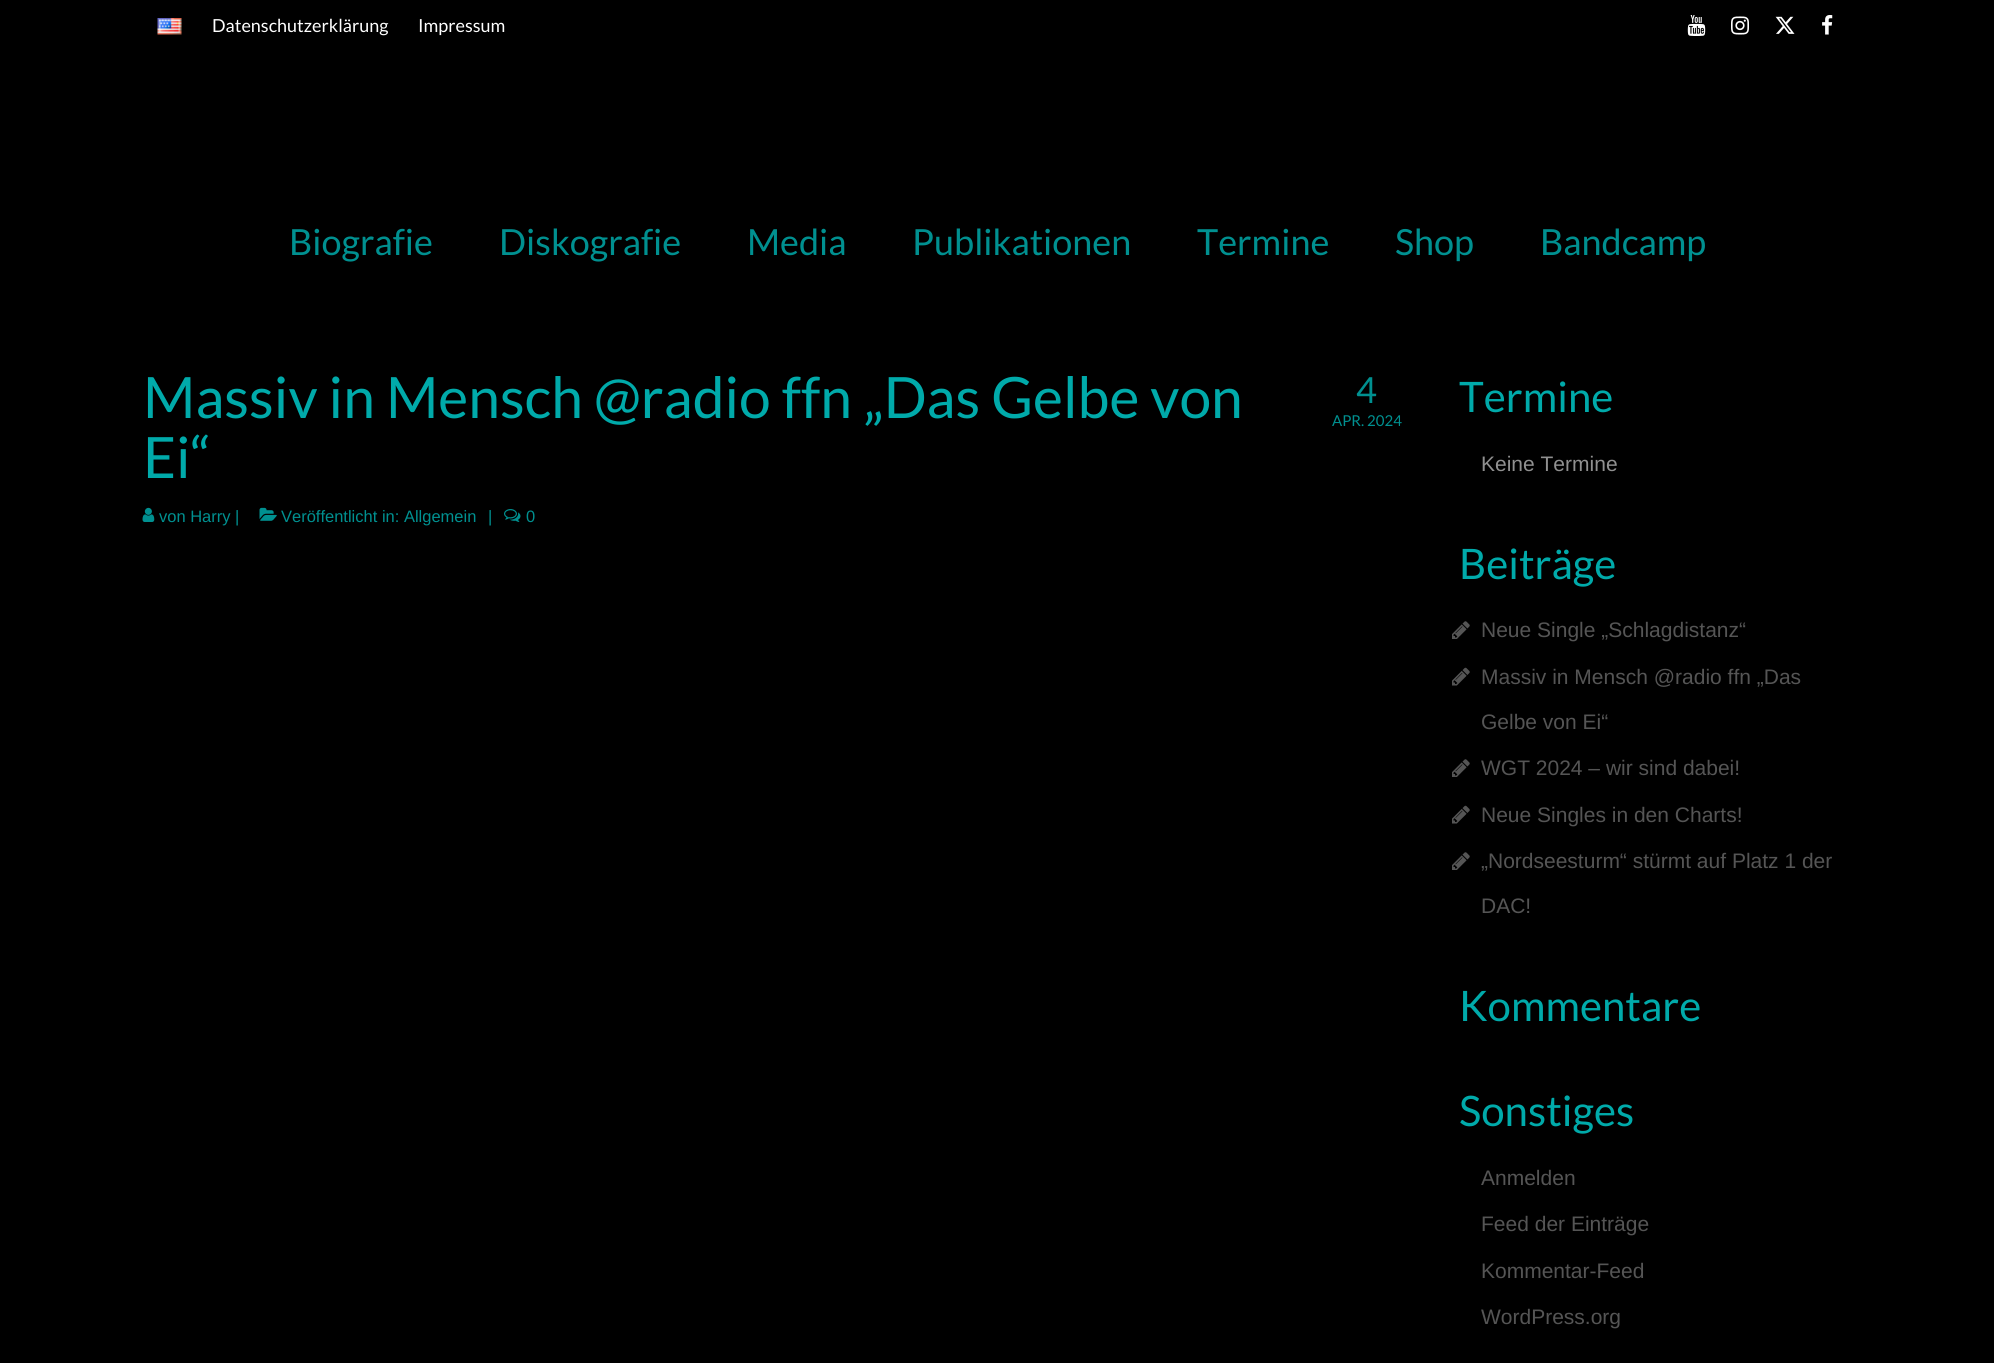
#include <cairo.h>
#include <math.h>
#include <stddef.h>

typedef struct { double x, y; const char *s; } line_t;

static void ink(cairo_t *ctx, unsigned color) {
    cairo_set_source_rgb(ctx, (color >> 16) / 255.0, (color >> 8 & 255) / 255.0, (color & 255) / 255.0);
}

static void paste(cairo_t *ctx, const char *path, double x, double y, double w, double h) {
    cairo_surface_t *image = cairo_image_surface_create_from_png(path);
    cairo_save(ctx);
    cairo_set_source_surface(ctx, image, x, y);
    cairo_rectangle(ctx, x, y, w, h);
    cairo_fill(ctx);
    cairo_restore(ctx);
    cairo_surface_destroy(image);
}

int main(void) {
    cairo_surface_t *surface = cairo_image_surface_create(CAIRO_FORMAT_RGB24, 1994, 1363);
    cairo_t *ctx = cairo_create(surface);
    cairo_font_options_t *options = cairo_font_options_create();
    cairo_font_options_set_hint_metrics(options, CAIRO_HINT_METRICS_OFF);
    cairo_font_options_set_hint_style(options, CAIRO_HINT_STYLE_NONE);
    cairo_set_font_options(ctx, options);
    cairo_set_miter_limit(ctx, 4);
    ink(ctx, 0x000000);
    cairo_paint(ctx);
    paste(ctx, "media/1.png", 157, 18, 25, 17);
    cairo_select_font_face(ctx, "Lato", CAIRO_FONT_SLANT_NORMAL, CAIRO_FONT_WEIGHT_NORMAL);
    cairo_set_font_size(ctx, 18);
    ink(ctx, 0xFFFFFF);
    cairo_move_to(ctx, 212, 32);
    cairo_show_text(ctx, "Datenschutzerklärung");
    cairo_move_to(ctx, 418, 32);
    cairo_show_text(ctx, "Impressum");
    paste(ctx, "media/2.png", 1687, 15, 19, 21);
    paste(ctx, "media/3.png", 1731, 16, 18, 19);
    paste(ctx, "media/4.png", 1775, 16, 20, 18);
    paste(ctx, "media/5.png", 1822, 15, 11, 20);
    cairo_set_font_size(ctx, 36);
    ink(ctx, 0x009090);
    {
        static const line_t items[] = {
            {289, 255, "Biografie"},
            {499, 255, "Diskografie"},
            {747, 255, "Media"},
            {912, 255, "Publikationen"},
            {1197, 255, "Termine"},
            {1395, 255, "Shop"},
            {1540, 255, "Bandcamp"},
        };
        for (size_t i = 0; i < sizeof items / sizeof *items; i++) {
            cairo_move_to(ctx, items[i].x, items[i].y);
            cairo_show_text(ctx, items[i].s);
        }
    }
    cairo_set_font_size(ctx, 57);
    ink(ctx, 0x00AAAA);
    cairo_move_to(ctx, 143, 418);
    cairo_show_text(ctx, "Massiv in Mensch @radio ffn „Das Gelbe von");
    cairo_move_to(ctx, 143, 478);
    cairo_show_text(ctx, "Ei“");
    paste(ctx, "media/6.png", 142, 507, 13, 15);
    cairo_select_font_face(ctx, "Liberation Sans", CAIRO_FONT_SLANT_NORMAL, CAIRO_FONT_WEIGHT_NORMAL);
    cairo_set_font_size(ctx, 16.5);
    ink(ctx, 0x009090);
    cairo_move_to(ctx, 159, 522);
    cairo_show_text(ctx, "von Harry |");
    paste(ctx, "media/7.png", 259, 507, 18, 14);
    cairo_move_to(ctx, 281, 522);
    cairo_show_text(ctx, "Veröffentlicht in: Allgemein");
    cairo_move_to(ctx, 488, 522);
    cairo_show_text(ctx, "|");
    paste(ctx, "media/8.png", 504, 509, 17, 13);
    cairo_move_to(ctx, 526, 522);
    cairo_show_text(ctx, "0");
    cairo_select_font_face(ctx, "Lato", CAIRO_FONT_SLANT_NORMAL, CAIRO_FONT_WEIGHT_NORMAL);
    cairo_set_font_size(ctx, 36);
    cairo_move_to(ctx, 1356, 403);
    cairo_show_text(ctx, "4");
    cairo_set_font_size(ctx, 15);
    cairo_move_to(ctx, 1332, 426);
    cairo_show_text(ctx, "APR. 2024");
    cairo_set_font_size(ctx, 42);
    ink(ctx, 0x00AAAA);
    cairo_move_to(ctx, 1459, 412);
    cairo_show_text(ctx, "Termine");
    cairo_select_font_face(ctx, "Liberation Sans", CAIRO_FONT_SLANT_NORMAL, CAIRO_FONT_WEIGHT_NORMAL);
    cairo_set_font_size(ctx, 21);
    ink(ctx, 0x909090);
    cairo_move_to(ctx, 1481, 471);
    cairo_show_text(ctx, "Keine Termine");
    cairo_select_font_face(ctx, "Lato", CAIRO_FONT_SLANT_NORMAL, CAIRO_FONT_WEIGHT_NORMAL);
    cairo_set_font_size(ctx, 42);
    ink(ctx, 0x00AAAA);
    cairo_move_to(ctx, 1459, 579);
    cairo_show_text(ctx, "Beiträge");
    paste(ctx, "media/9.png", 1452, 621, 18, 18);
    cairo_select_font_face(ctx, "Liberation Sans", CAIRO_FONT_SLANT_NORMAL, CAIRO_FONT_WEIGHT_NORMAL);
    cairo_set_font_size(ctx, 21);
    ink(ctx, 0x555555);
    cairo_move_to(ctx, 1481, 637);
    cairo_show_text(ctx, "Neue Single „Schlagdistanz“");
    paste(ctx, "media/10.png", 1452, 667, 18, 19);
    cairo_move_to(ctx, 1481, 684);
    cairo_show_text(ctx, "Massiv in Mensch @radio ffn „Das");
    cairo_move_to(ctx, 1481, 729);
    cairo_show_text(ctx, "Gelbe von Ei“");
    paste(ctx, "media/9.png", 1452, 759, 18, 18);
    cairo_move_to(ctx, 1481, 775);
    cairo_show_text(ctx, "WGT 2024 – wir sind dabei!");
    paste(ctx, "media/10.png", 1452, 805, 18, 19);
    cairo_move_to(ctx, 1481, 822);
    cairo_show_text(ctx, "Neue Singles in den Charts!");
    paste(ctx, "media/9.png", 1452, 852, 18, 18);
    cairo_move_to(ctx, 1481, 868);
    cairo_show_text(ctx, "„Nordseesturm“ stürmt auf Platz 1 der");
    cairo_move_to(ctx, 1481, 913);
    cairo_show_text(ctx, "DAC!");
    cairo_select_font_face(ctx, "Lato", CAIRO_FONT_SLANT_NORMAL, CAIRO_FONT_WEIGHT_NORMAL);
    cairo_set_font_size(ctx, 42);
    ink(ctx, 0x00AAAA);
    cairo_move_to(ctx, 1459, 1021);
    cairo_show_text(ctx, "Kommentare");
    cairo_move_to(ctx, 1459, 1126);
    cairo_show_text(ctx, "Sonstiges");
    cairo_select_font_face(ctx, "Liberation Sans", CAIRO_FONT_SLANT_NORMAL, CAIRO_FONT_WEIGHT_NORMAL);
    cairo_set_font_size(ctx, 21);
    ink(ctx, 0x555555);
    {
        static const line_t items[] = {
            {1481, 1185, "Anmelden"},
            {1481, 1231, "Feed der Einträge"},
            {1481, 1278, "Kommentar-Feed"},
            {1481, 1324, "WordPress.org"},
        };
        for (size_t i = 0; i < sizeof items / sizeof *items; i++) {
            cairo_move_to(ctx, items[i].x, items[i].y);
            cairo_show_text(ctx, items[i].s);
        }
    }
    cairo_surface_write_to_png(surface, "image.png");
    cairo_font_options_destroy(options);
    cairo_destroy(ctx);
    cairo_surface_destroy(surface);
    return 0;
}
